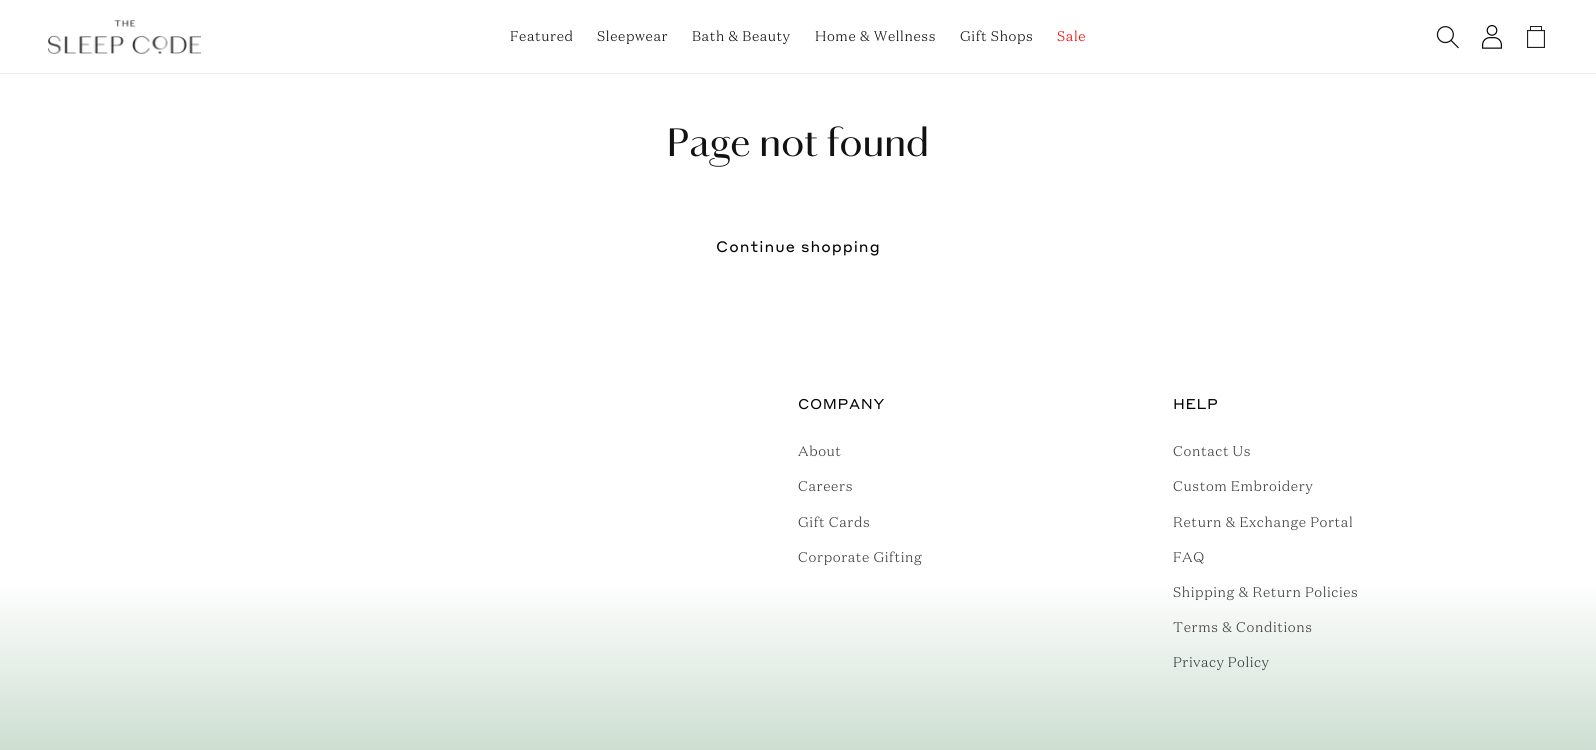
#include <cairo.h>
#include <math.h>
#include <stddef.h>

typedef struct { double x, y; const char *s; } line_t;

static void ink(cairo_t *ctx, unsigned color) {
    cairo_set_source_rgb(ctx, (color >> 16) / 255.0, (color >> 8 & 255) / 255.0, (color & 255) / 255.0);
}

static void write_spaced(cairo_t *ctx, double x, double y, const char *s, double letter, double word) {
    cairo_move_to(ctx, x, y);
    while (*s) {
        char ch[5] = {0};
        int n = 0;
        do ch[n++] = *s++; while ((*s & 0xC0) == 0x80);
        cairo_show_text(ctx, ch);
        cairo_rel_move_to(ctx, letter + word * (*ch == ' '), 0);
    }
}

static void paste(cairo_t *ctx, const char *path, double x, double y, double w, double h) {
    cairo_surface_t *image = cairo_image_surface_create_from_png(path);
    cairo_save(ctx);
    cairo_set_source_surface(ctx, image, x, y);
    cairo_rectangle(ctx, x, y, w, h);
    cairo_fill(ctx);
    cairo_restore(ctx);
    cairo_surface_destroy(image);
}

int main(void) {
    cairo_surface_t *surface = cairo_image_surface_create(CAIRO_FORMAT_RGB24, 1596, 750);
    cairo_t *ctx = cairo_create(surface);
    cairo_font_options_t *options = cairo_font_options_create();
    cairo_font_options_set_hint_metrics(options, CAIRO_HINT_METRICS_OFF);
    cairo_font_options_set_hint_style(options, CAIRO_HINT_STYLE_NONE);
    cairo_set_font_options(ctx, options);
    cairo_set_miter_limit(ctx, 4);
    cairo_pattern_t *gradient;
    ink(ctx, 0xFFFFFF);
    cairo_paint(ctx);
    ink(ctx, 0xECECEC);
    cairo_rectangle(ctx, 0, 73, 1596, 1);
    cairo_fill(ctx);
    paste(ctx, "media/1.png", 48, 20, 153, 34);
    cairo_select_font_face(ctx, "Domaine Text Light", CAIRO_FONT_SLANT_NORMAL, CAIRO_FONT_WEIGHT_NORMAL);
    cairo_set_font_size(ctx, 14);
    ink(ctx, 0x121212);
    {
        static const line_t items[] = {
            {510, 41, "Featured"},
            {597, 41, "Sleepwear"},
            {692, 41, "Bath & Beauty"},
            {815, 41, "Home & Wellness"},
            {960, 41, "Gift Shops"},
        };
        for (size_t i = 0; i < sizeof items / sizeof *items; i++) {
            write_spaced(ctx, items[i].x, items[i].y, items[i].s, 0.6, 0);
        }
    }
    ink(ctx, 0xFF0000);
    write_spaced(ctx, 1057, 41, "Sale", 0.6, 0);
    paste(ctx, "media/2.png", 1436, 26, 23, 23);
    paste(ctx, "media/3.png", 1482, 25, 20, 24);
    paste(ctx, "media/4.png", 1527, 26, 18, 22);
    cairo_select_font_face(ctx, "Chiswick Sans", CAIRO_FONT_SLANT_NORMAL, CAIRO_FONT_WEIGHT_NORMAL);
    cairo_set_font_size(ctx, 40);
    ink(ctx, 0x121212);
    write_spaced(ctx, 667, 156, "Page not found", 0.6, 0);
    cairo_select_font_face(ctx, "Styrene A", CAIRO_FONT_SLANT_NORMAL, CAIRO_FONT_WEIGHT_NORMAL);
    cairo_set_font_size(ctx, 15);
    ink(ctx, 0x000000);
    write_spaced(ctx, 716, 252, "Continue shopping", 1, 0);
    gradient = cairo_pattern_create_linear(798, 340, 798, 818);
    cairo_pattern_add_color_stop_rgba(gradient, 0.5, 1, 1, 1, 1);
    cairo_pattern_add_color_stop_rgba(gradient, 1, 0.729, 0.82, 0.749, 1);
    cairo_set_source(ctx, gradient);
    cairo_pattern_destroy(gradient);
    cairo_rectangle(ctx, 0, 588, 1596, 162);
    cairo_fill(ctx);
    cairo_set_font_size(ctx, 14);
    ink(ctx, 0x000000);
    write_spaced(ctx, 798, 409, "COMPANY", 0.6, 0);
    cairo_select_font_face(ctx, "Domaine Text Light", CAIRO_FONT_SLANT_NORMAL, CAIRO_FONT_WEIGHT_NORMAL);
    ink(ctx, 0x404040);
    {
        static const line_t items[] = {
            {798, 456, "About"},
            {798, 491, "Careers"},
            {798, 527, "Gift Cards"},
            {798, 562, "Corporate Gifting"},
        };
        for (size_t i = 0; i < sizeof items / sizeof *items; i++) {
            write_spaced(ctx, items[i].x, items[i].y, items[i].s, 0.6, 0);
        }
    }
    cairo_select_font_face(ctx, "Styrene A", CAIRO_FONT_SLANT_NORMAL, CAIRO_FONT_WEIGHT_NORMAL);
    ink(ctx, 0x000000);
    write_spaced(ctx, 1173, 409, "HELP", 0.6, 0);
    cairo_select_font_face(ctx, "Domaine Text Light", CAIRO_FONT_SLANT_NORMAL, CAIRO_FONT_WEIGHT_NORMAL);
    ink(ctx, 0x404040);
    {
        static const line_t items[] = {
            {1173, 456, "Contact Us"},
            {1173, 491, "Custom Embroidery"},
            {1173, 527, "Return & Exchange Portal"},
            {1173, 562, "FAQ"},
            {1173, 597, "Shipping & Return Policies"},
            {1173, 632, "Terms & Conditions"},
        };
        for (size_t i = 0; i < sizeof items / sizeof *items; i++) {
            write_spaced(ctx, items[i].x, items[i].y, items[i].s, 0.6, 0);
        }
    }
    ink(ctx, 0x3A3C3A);
    write_spaced(ctx, 1173, 667, "Privacy Policy", 0.6, 0);
    cairo_surface_write_to_png(surface, "image.png");
    cairo_font_options_destroy(options);
    cairo_destroy(ctx);
    cairo_surface_destroy(surface);
    return 0;
}
